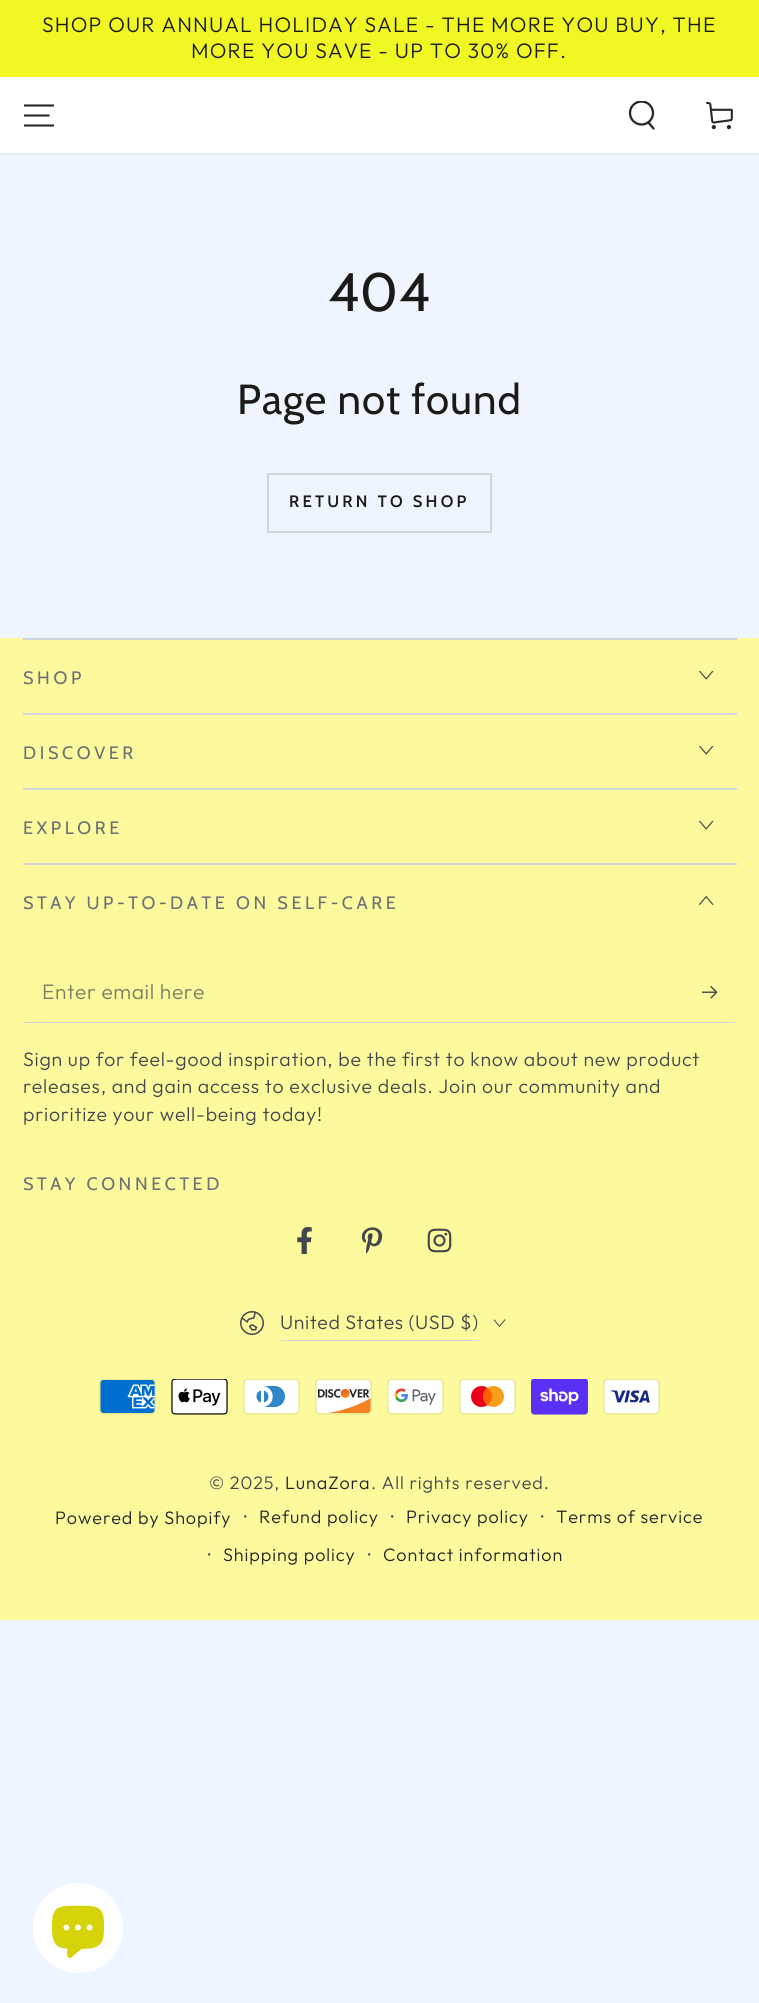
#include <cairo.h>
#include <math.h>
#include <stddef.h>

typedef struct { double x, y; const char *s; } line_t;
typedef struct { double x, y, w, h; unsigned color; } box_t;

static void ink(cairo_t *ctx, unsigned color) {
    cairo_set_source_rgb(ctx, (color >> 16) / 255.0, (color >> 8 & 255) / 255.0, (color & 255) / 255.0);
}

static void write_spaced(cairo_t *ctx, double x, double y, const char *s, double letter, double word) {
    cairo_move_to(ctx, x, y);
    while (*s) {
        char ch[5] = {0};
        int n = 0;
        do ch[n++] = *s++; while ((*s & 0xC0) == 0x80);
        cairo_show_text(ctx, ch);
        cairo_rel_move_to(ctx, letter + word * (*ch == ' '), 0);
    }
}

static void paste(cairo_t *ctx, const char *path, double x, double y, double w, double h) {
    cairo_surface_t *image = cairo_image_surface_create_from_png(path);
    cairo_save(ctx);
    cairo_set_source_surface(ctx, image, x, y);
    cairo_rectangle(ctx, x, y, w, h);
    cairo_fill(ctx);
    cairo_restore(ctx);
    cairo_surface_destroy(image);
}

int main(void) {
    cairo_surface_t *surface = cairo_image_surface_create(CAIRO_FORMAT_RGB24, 759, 2003);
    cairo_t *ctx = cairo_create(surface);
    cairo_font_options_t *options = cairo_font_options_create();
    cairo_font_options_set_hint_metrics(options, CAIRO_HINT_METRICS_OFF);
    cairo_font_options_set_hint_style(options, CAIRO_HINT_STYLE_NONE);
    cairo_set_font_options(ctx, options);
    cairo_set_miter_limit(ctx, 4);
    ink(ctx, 0xEFF5FF);
    cairo_paint(ctx);
    ink(ctx, 0xF1F722);
    cairo_rectangle(ctx, 0, 0, 759, 77);
    cairo_fill(ctx);
    cairo_select_font_face(ctx, "Outfit Light", CAIRO_FONT_SLANT_NORMAL, CAIRO_FONT_WEIGHT_NORMAL);
    cairo_set_font_size(ctx, 21);
    ink(ctx, 0x1A1B18);
    write_spaced(ctx, 42, 32, "SHOP OUR ANNUAL HOLIDAY SALE - THE MORE YOU BUY, THE", 1.17, 0);
    write_spaced(ctx, 191, 58, "MORE YOU SAVE - UP TO 30% OFF.", 1.17, 0);
    ink(ctx, 0xE6EBF4);
    cairo_rectangle(ctx, 0, 153, 759, 2);
    cairo_fill(ctx);
    ink(ctx, 0xFFFFFF);
    cairo_rectangle(ctx, 0, 77, 759, 76);
    cairo_fill(ctx);
    cairo_new_path(ctx);
    cairo_move_to(ctx, 24, 125.5);
    cairo_line_to(ctx, 54, 125.5);
    cairo_move_to(ctx, 24, 115.5);
    cairo_line_to(ctx, 49.5, 115.5);
    cairo_move_to(ctx, 24, 105.5);
    cairo_line_to(ctx, 54, 105.5);
    ink(ctx, 0x282828);
    cairo_set_line_width(ctx, 2.1);
    cairo_stroke(ctx);
    cairo_save(ctx);
    cairo_rectangle(ctx, 627, 101, 30, 30);
    cairo_clip(ctx);
    cairo_arc(ctx, 641.5, 113, 11.5, 0, 2 * M_PI);
    cairo_set_line_width(ctx, 2.3);
    cairo_stroke(ctx);
    cairo_restore(ctx);
    cairo_new_path(ctx);
    cairo_move_to(ctx, 648.5, 122.5);
    cairo_line_to(ctx, 653.5, 128.5);
    cairo_set_line_width(ctx, 2.3);
    cairo_set_line_cap(ctx, CAIRO_LINE_CAP_ROUND);
    cairo_stroke(ctx);
    paste(ctx, "media/1.png", 706, 101, 27, 29);
    cairo_select_font_face(ctx, "Cabin", CAIRO_FONT_SLANT_NORMAL, CAIRO_FONT_WEIGHT_NORMAL);
    cairo_set_font_size(ctx, 54);
    ink(ctx, 0x1A1B18);
    write_spaced(ctx, 328, 311, "404", 0.9, 0);
    cairo_set_font_size(ctx, 42);
    write_spaced(ctx, 237, 414, "Page not found", 0.9, 0);
    cairo_rectangle(ctx, 268, 474, 223, 58);
    ink(ctx, 0xD2D5D9);
    cairo_set_line_width(ctx, 2);
    cairo_set_line_cap(ctx, CAIRO_LINE_CAP_BUTT);
    cairo_stroke(ctx);
    cairo_select_font_face(ctx, "Cabin SemiBold", CAIRO_FONT_SLANT_NORMAL, CAIRO_FONT_WEIGHT_NORMAL);
    cairo_set_font_size(ctx, 16.5);
    ink(ctx, 0x1A1B18);
    write_spaced(ctx, 289, 507, "RETURN TO SHOP", 3.25, 0);
    {
        static const box_t items[] = {
            {0, 638, 759, 982, 0xFCFA9D},
            {23, 638, 714, 2, 0xD2D5D9},
            {23, 713, 714, 2, 0xD2D5D9},
        };
        for (size_t i = 0; i < sizeof items / sizeof *items; i++) {
            ink(ctx, items[i].color);
            cairo_rectangle(ctx, items[i].x, items[i].y, items[i].w, items[i].h);
            cairo_fill(ctx);
        }
    }
    cairo_select_font_face(ctx, "Cabin", CAIRO_FONT_SLANT_NORMAL, CAIRO_FONT_WEIGHT_NORMAL);
    cairo_set_font_size(ctx, 18);
    ink(ctx, 0x6B7177);
    write_spaced(ctx, 23, 684, "SHOP", 3.6, 0);
    paste(ctx, "media/2.png", 699, 671, 15, 9);
    ink(ctx, 0xD2D5D9);
    cairo_rectangle(ctx, 23, 788, 714, 2);
    cairo_fill(ctx);
    ink(ctx, 0x6B7177);
    write_spaced(ctx, 23, 759, "DISCOVER", 3.6, 0);
    paste(ctx, "media/2.png", 699, 746, 15, 9);
    ink(ctx, 0xD2D5D9);
    cairo_rectangle(ctx, 23, 863, 714, 2);
    cairo_fill(ctx);
    ink(ctx, 0x6B7177);
    write_spaced(ctx, 23, 834, "EXPLORE", 3.6, 0);
    paste(ctx, "media/2.png", 699, 821, 15, 9);
    write_spaced(ctx, 23, 909, "STAY UP-TO-DATE ON SELF-CARE", 3.6, 0);
    paste(ctx, "media/3.png", 699, 896, 15, 9);
    ink(ctx, 0xD2D5D9);
    cairo_new_path(ctx);
    cairo_move_to(ctx, 736, 1023);
    cairo_line_to(ctx, 22, 1023);
    cairo_line_to(ctx, 24, 1022);
    cairo_line_to(ctx, 735, 1022);
    cairo_close_path(ctx);
    cairo_fill(ctx);
    cairo_select_font_face(ctx, "Outfit Light", CAIRO_FONT_SLANT_NORMAL, CAIRO_FONT_WEIGHT_NORMAL);
    cairo_set_font_size(ctx, 21);
    ink(ctx, 0x7A7D64);
    write_spaced(ctx, 42, 999, "Enter email here", 0.6, 0);
    paste(ctx, "media/4.png", 702, 986, 16, 13);
    cairo_set_font_size(ctx, 19.5);
    ink(ctx, 0x42474C);
    {
        static const line_t items[] = {
            {23, 1066, "Sign up for feel-good inspiration, be the first to know about new product"},
            {23, 1093, "releases, and gain access to exclusive deals. Join our community and"},
            {23, 1121, "prioritize your well-being today!"},
        };
        for (size_t i = 0; i < sizeof items / sizeof *items; i++) {
            write_spaced(ctx, items[i].x, items[i].y, items[i].s, 0.75, 0);
        }
    }
    cairo_select_font_face(ctx, "Cabin", CAIRO_FONT_SLANT_NORMAL, CAIRO_FONT_WEIGHT_NORMAL);
    cairo_set_font_size(ctx, 18);
    ink(ctx, 0x6B7177);
    write_spaced(ctx, 23, 1190, "STAY CONNECTED", 3.6, 0);
    paste(ctx, "media/5.png", 297, 1227, 15, 27);
    paste(ctx, "media/6.png", 361, 1227, 22, 27);
    paste(ctx, "media/7.png", 427, 1228, 25, 25);
    paste(ctx, "media/8.png", 240, 1311, 24, 24);
    ink(ctx, 0xD2D5D9);
    cairo_rectangle(ctx, 281, 1340, 198, 1);
    cairo_fill(ctx);
    cairo_select_font_face(ctx, "Outfit Light", CAIRO_FONT_SLANT_NORMAL, CAIRO_FONT_WEIGHT_NORMAL);
    cairo_set_font_size(ctx, 19.5);
    ink(ctx, 0x42474C);
    write_spaced(ctx, 280, 1329, "United States (USD $)", 0.6, 0);
    paste(ctx, "media/9.png", 494, 1319, 12, 8);
    paste(ctx, "media/10.png", 99, 1379, 57, 36);
    paste(ctx, "media/11.png", 171, 1379, 57, 36);
    paste(ctx, "media/12.png", 243, 1379, 57, 36);
    paste(ctx, "media/13.png", 315, 1379, 57, 36);
    paste(ctx, "media/14.png", 387, 1379, 57, 36);
    paste(ctx, "media/15.png", 459, 1379, 57, 36);
    paste(ctx, "media/16.png", 531, 1379, 57, 36);
    paste(ctx, "media/17.png", 603, 1379, 57, 36);
    cairo_set_font_size(ctx, 18);
    write_spaced(ctx, 209, 1489, "© 2025,", 0.9, 0);
    ink(ctx, 0x212326);
    write_spaced(ctx, 285, 1489, "LunaZora", 0.9, 0);
    ink(ctx, 0x42474C);
    write_spaced(ctx, 371, 1489, ". All rights reserved.", 0.9, 0);
    ink(ctx, 0x212326);
    write_spaced(ctx, 55, 1524, "Powered by Shopify", 0.9, 0);
    cairo_set_font_size(ctx, 21);
    ink(ctx, 0x42474C);
    write_spaced(ctx, 244, 1524, "·", 0.9, 0);
    cairo_set_font_size(ctx, 18);
    ink(ctx, 0x212326);
    write_spaced(ctx, 259, 1523, "Refund policy", 0.9, 0);
    cairo_set_font_size(ctx, 21);
    ink(ctx, 0x42474C);
    write_spaced(ctx, 391, 1524, "·", 0.9, 0);
    cairo_set_font_size(ctx, 18);
    ink(ctx, 0x212326);
    write_spaced(ctx, 406, 1523, "Privacy policy", 0.9, 0);
    cairo_set_font_size(ctx, 21);
    ink(ctx, 0x42474C);
    write_spaced(ctx, 541, 1524, "·", 0.9, 0);
    cairo_set_font_size(ctx, 18);
    ink(ctx, 0x212326);
    write_spaced(ctx, 556, 1523, "Terms of service", 0.9, 0);
    cairo_set_font_size(ctx, 21);
    ink(ctx, 0x42474C);
    write_spaced(ctx, 208, 1562, "·", 0.9, 0);
    cairo_set_font_size(ctx, 18);
    ink(ctx, 0x212326);
    write_spaced(ctx, 223, 1561, "Shipping policy", 0.9, 0);
    cairo_set_font_size(ctx, 21);
    ink(ctx, 0x42474C);
    write_spaced(ctx, 368, 1562, "·", 0.9, 0);
    cairo_set_font_size(ctx, 18);
    ink(ctx, 0x212326);
    write_spaced(ctx, 383, 1561, "Contact information", 0.9, 0);
    ink(ctx, 0xFFFFFF);
    cairo_new_path(ctx);
    cairo_arc(ctx, 78, 1928, 45, 0, 2 * M_PI);
    cairo_fill(ctx);
    paste(ctx, "media/18.png", 51, 1905, 54, 53);
    cairo_surface_write_to_png(surface, "image.png");
    cairo_font_options_destroy(options);
    cairo_destroy(ctx);
    cairo_surface_destroy(surface);
    return 0;
}
